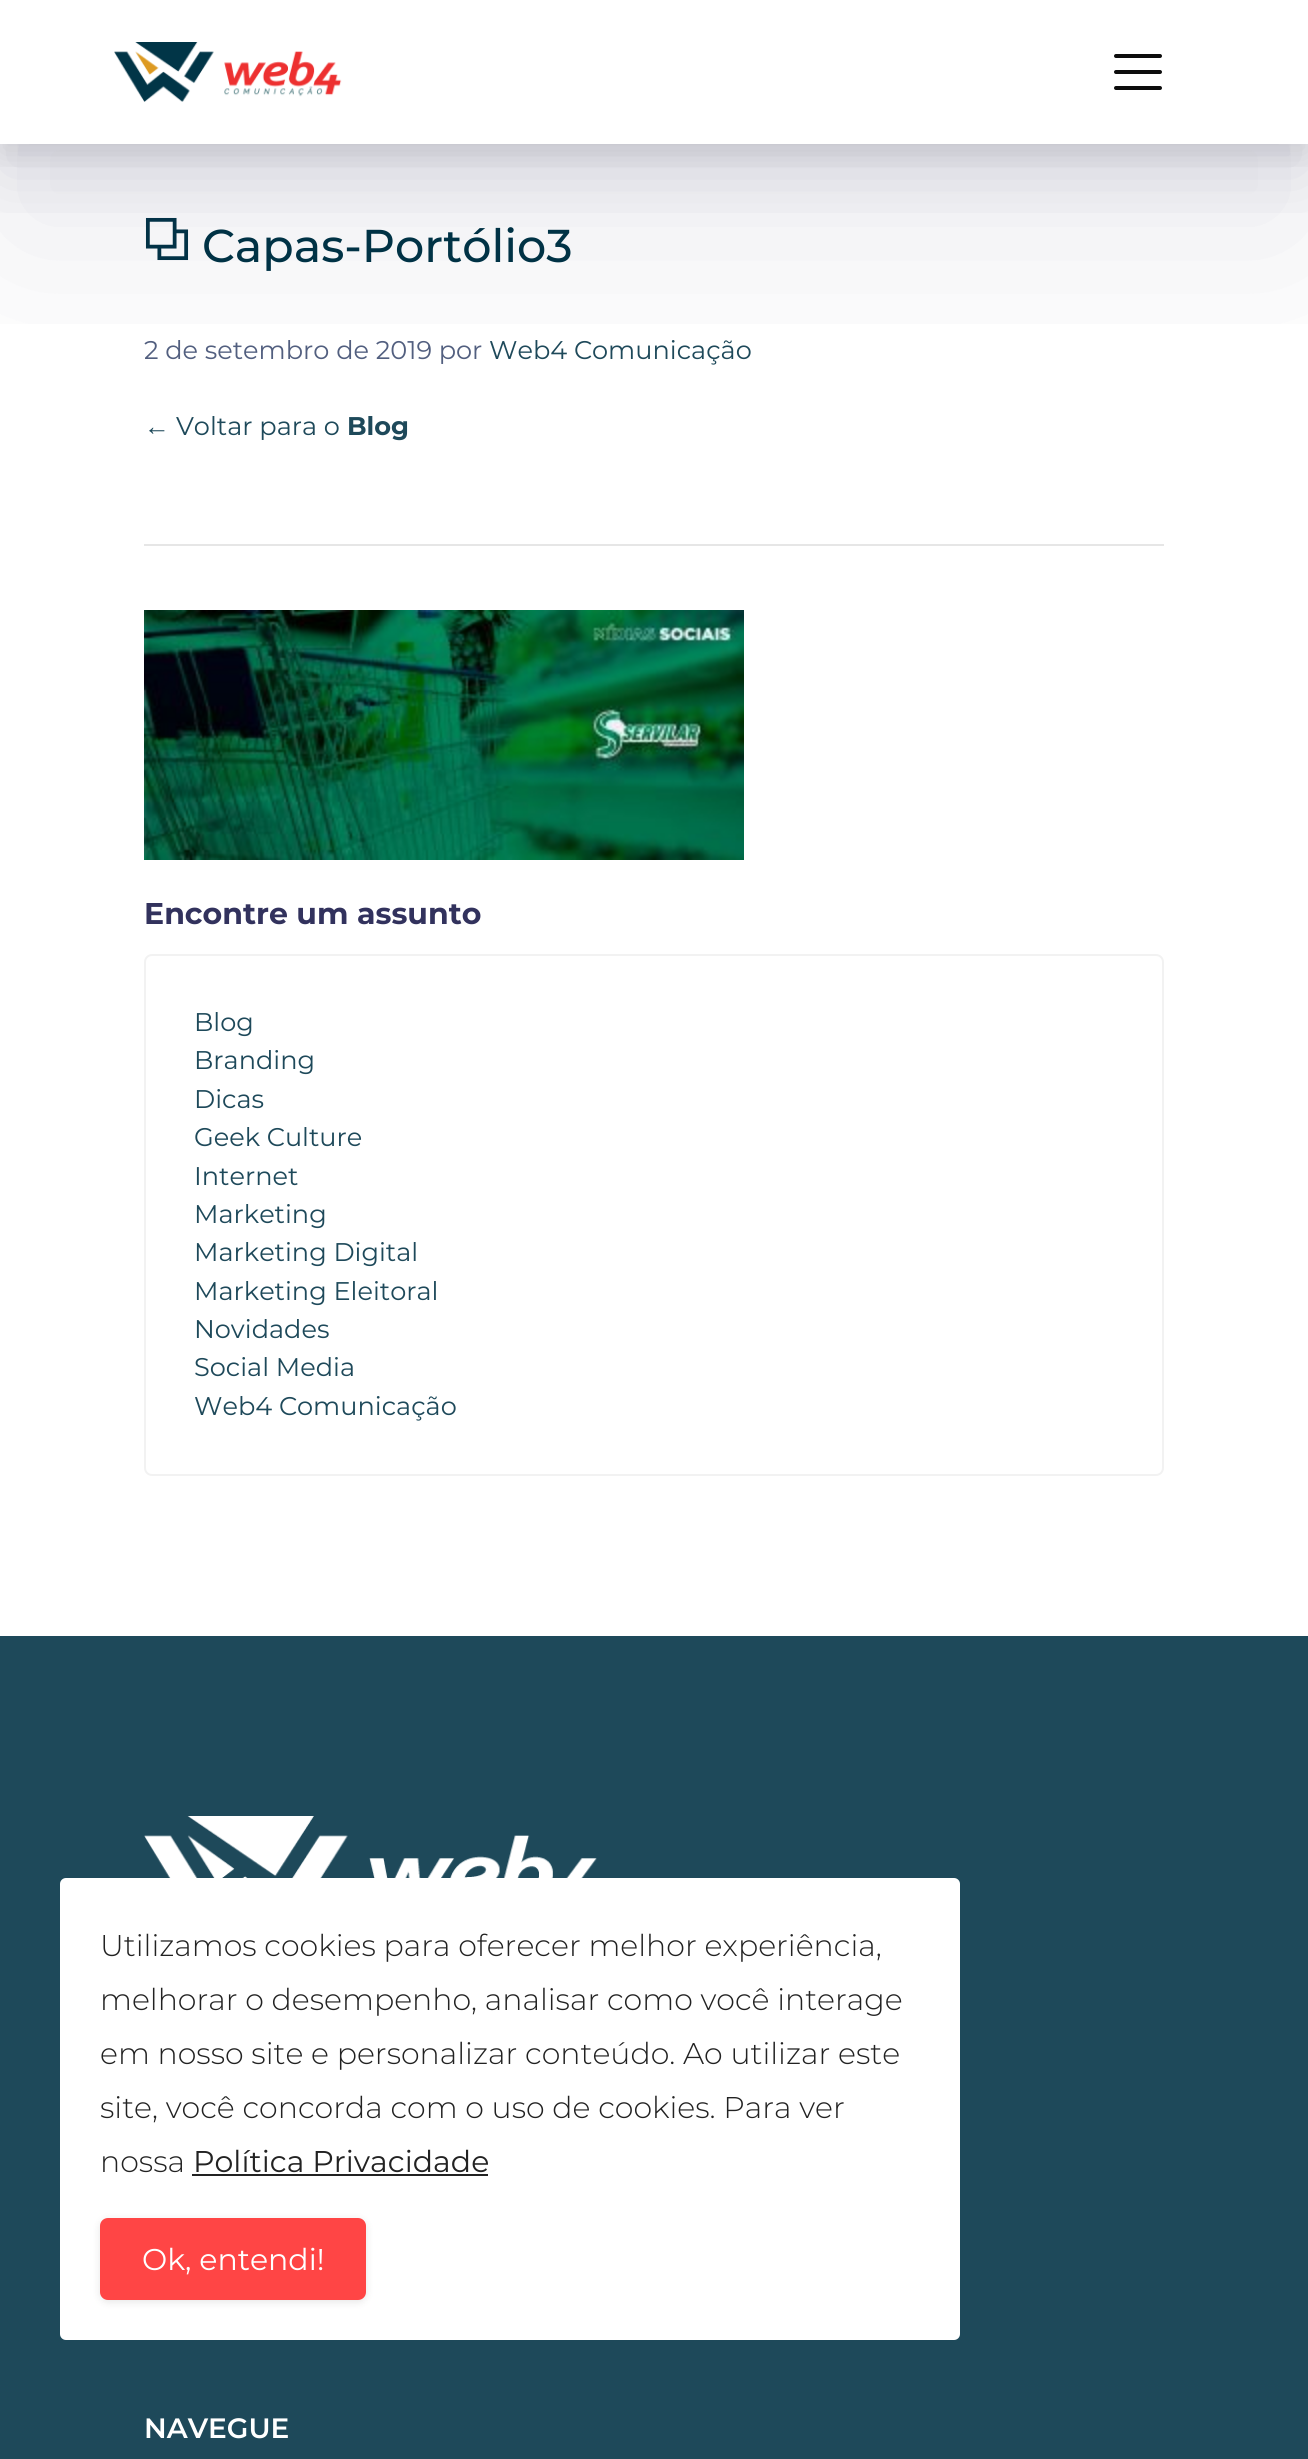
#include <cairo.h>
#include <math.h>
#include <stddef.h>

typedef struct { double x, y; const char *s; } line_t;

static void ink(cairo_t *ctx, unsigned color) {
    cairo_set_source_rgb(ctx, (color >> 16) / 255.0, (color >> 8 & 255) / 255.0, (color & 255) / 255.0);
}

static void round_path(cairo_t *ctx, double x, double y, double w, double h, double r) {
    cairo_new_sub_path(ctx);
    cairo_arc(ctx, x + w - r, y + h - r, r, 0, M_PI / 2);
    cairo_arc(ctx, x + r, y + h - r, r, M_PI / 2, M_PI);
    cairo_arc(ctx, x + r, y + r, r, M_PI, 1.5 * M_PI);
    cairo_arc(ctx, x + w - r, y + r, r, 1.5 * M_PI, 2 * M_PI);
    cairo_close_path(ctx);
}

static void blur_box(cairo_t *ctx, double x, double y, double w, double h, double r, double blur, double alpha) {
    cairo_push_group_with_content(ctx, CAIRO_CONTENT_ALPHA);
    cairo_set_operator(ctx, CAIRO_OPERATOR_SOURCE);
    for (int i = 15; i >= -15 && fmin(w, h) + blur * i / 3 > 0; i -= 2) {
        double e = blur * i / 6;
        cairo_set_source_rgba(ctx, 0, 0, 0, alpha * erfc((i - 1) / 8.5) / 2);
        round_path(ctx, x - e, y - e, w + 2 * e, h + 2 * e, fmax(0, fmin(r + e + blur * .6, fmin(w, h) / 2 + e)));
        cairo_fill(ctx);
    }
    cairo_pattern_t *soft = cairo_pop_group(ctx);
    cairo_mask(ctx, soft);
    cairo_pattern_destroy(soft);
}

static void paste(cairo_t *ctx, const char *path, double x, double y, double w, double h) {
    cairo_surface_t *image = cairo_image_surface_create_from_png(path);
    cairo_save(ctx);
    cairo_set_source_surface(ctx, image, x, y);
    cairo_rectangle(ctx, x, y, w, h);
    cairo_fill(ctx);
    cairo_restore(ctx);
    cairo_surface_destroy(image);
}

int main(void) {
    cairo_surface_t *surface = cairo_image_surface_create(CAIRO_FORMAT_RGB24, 1308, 2459);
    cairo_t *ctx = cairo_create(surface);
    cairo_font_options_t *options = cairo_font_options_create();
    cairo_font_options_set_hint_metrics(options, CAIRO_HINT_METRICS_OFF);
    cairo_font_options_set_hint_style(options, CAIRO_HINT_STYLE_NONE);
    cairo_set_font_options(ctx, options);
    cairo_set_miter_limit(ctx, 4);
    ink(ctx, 0xFFFFFF);
    cairo_paint(ctx);
    cairo_save(ctx);
    cairo_rectangle(ctx, 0, 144, 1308, 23);
    cairo_clip(ctx);
    ink(ctx, 0x000000);
    blur_box(ctx, 0, 10, 1308, 144, 0, 15, 0.1);
    cairo_restore(ctx);
    paste(ctx, "media/2.png", 145, 217, 44, 44);
    cairo_save(ctx);
    cairo_rectangle(ctx, 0, 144, 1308, 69);
    cairo_clip(ctx);
    ink(ctx, 0x32325D);
    blur_box(ctx, 0, 30, 1308, 144, 0, 35, 0.15);
    cairo_restore(ctx);
    ink(ctx, 0xE6E6E6);
    cairo_rectangle(ctx, 144, 544, 1020, 2);
    cairo_fill(ctx);
    cairo_save(ctx);
    cairo_rectangle(ctx, 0, 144, 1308, 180);
    cairo_clip(ctx);
    ink(ctx, 0x32325D);
    blur_box(ctx, 0, 100, 1308, 144, 0, 100, 0.1);
    cairo_restore(ctx);
    paste(ctx, "media/1.png", 114, 42, 228, 60);
    cairo_new_path(ctx);
    cairo_move_to(ctx, 1116, 56);
    cairo_line_to(ctx, 1160, 56);
    cairo_move_to(ctx, 1116, 72);
    cairo_line_to(ctx, 1160, 72);
    cairo_move_to(ctx, 1116, 88);
    cairo_line_to(ctx, 1160, 88);
    ink(ctx, 0x0D0D0D);
    cairo_set_line_width(ctx, 4);
    cairo_set_line_cap(ctx, CAIRO_LINE_CAP_ROUND);
    cairo_stroke(ctx);
    cairo_select_font_face(ctx, "Montserrat Medium", CAIRO_FONT_SLANT_NORMAL, CAIRO_FONT_WEIGHT_NORMAL);
    cairo_set_font_size(ctx, 46);
    ink(ctx, 0x003245);
    cairo_move_to(ctx, 202, 262);
    cairo_show_text(ctx, "Capas-Portólio3");
    cairo_select_font_face(ctx, "Montserrat", CAIRO_FONT_SLANT_NORMAL, CAIRO_FONT_WEIGHT_NORMAL);
    cairo_set_font_size(ctx, 25.6);
    ink(ctx, 0x525F7F);
    cairo_move_to(ctx, 144, 359);
    cairo_show_text(ctx, "2 de setembro de 2019 por");
    ink(ctx, 0x1E495A);
    cairo_move_to(ctx, 489, 359);
    cairo_show_text(ctx, "Web4 Comunicação");
    cairo_select_font_face(ctx, "Liberation Sans", CAIRO_FONT_SLANT_NORMAL, CAIRO_FONT_WEIGHT_NORMAL);
    cairo_move_to(ctx, 144, 435);
    cairo_show_text(ctx, "←");
    cairo_select_font_face(ctx, "Montserrat", CAIRO_FONT_SLANT_NORMAL, CAIRO_FONT_WEIGHT_NORMAL);
    cairo_move_to(ctx, 176, 435);
    cairo_show_text(ctx, "Voltar para o");
    cairo_select_font_face(ctx, "Montserrat", CAIRO_FONT_SLANT_NORMAL, CAIRO_FONT_WEIGHT_BOLD);
    cairo_move_to(ctx, 347, 435);
    cairo_show_text(ctx, "Blog");
    paste(ctx, "media/3.png", 144, 610, 600, 250);
    cairo_set_font_size(ctx, 30);
    ink(ctx, 0x32325D);
    cairo_move_to(ctx, 144, 924);
    cairo_show_text(ctx, "Encontre um assunto");
    round_path(ctx, 145, 955, 1018, 520, 7);
    ink(ctx, 0xF2F2F2);
    cairo_set_line_width(ctx, 2);
    cairo_set_line_cap(ctx, CAIRO_LINE_CAP_BUTT);
    cairo_stroke(ctx);
    cairo_select_font_face(ctx, "Montserrat", CAIRO_FONT_SLANT_NORMAL, CAIRO_FONT_WEIGHT_NORMAL);
    cairo_set_font_size(ctx, 25.6);
    ink(ctx, 0x1E495A);
    {
        static const line_t items[] = {
            {194, 1031, "Blog"},
            {194, 1069, "Branding"},
            {194, 1108, "Dicas"},
            {194, 1146, "Geek Culture"},
            {194, 1185, "Internet"},
            {194, 1223, "Marketing"},
            {194, 1261, "Marketing Digital"},
            {194, 1300, "Marketing Eleitoral"},
            {194, 1338, "Novidades"},
            {194, 1376, "Social Media"},
            {194, 1415, "Web4 Comunicação"},
        };
        for (size_t i = 0; i < sizeof items / sizeof *items; i++) {
            cairo_move_to(ctx, items[i].x, items[i].y);
            cairo_show_text(ctx, items[i].s);
        }
    }
    cairo_rectangle(ctx, 0, 1636, 1308, 823);
    cairo_fill(ctx);
    ink(ctx, 0xFFFFFF);
    round_path(ctx, 60, 1878, 900, 462, 6);
    cairo_fill(ctx);
    cairo_select_font_face(ctx, "Montserrat Light", CAIRO_FONT_SLANT_NORMAL, CAIRO_FONT_WEIGHT_NORMAL);
    cairo_set_font_size(ctx, 30);
    ink(ctx, 0x222222);
    {
        static const line_t items[] = {
            {100, 1956, "Utilizamos cookies para oferecer melhor experiência,"},
            {100, 2010, "melhorar o desempenho, analisar como você interage"},
            {100, 2064, "em nosso site e personalizar conteúdo. Ao utilizar este"},
            {100, 2118, "site, você concorda com o uso de cookies. Para ver"},
            {100, 2172, "nossa"},
        };
        for (size_t i = 0; i < sizeof items / sizeof *items; i++) {
            cairo_move_to(ctx, items[i].x, items[i].y);
            cairo_show_text(ctx, items[i].s);
        }
    }
    cairo_select_font_face(ctx, "Montserrat", CAIRO_FONT_SLANT_NORMAL, CAIRO_FONT_WEIGHT_NORMAL);
    cairo_move_to(ctx, 193, 2172);
    cairo_show_text(ctx, "Política Privacidade");
    cairo_rectangle(ctx, 192, 2174, 296, 2);
    cairo_fill(ctx);
    ink(ctx, 0x000000);
    blur_box(ctx, 100, 2220, 266, 82, 8, 4, 0.1);
    ink(ctx, 0xFF4545);
    round_path(ctx, 101, 2219, 264, 80, 7);
    cairo_fill_preserve(ctx);
    cairo_stroke(ctx);
    ink(ctx, 0xFFFFFF);
    cairo_move_to(ctx, 142, 2270);
    cairo_show_text(ctx, "Ok, entendi!");
    paste(ctx, "media/4.png", 144, 1816, 453, 62);
    cairo_select_font_face(ctx, "Montserrat SemiBold", CAIRO_FONT_SLANT_NORMAL, CAIRO_FONT_WEIGHT_NORMAL);
    cairo_set_font_size(ctx, 28);
    cairo_move_to(ctx, 144, 2438);
    cairo_show_text(ctx, "NAVEGUE");
    cairo_surface_write_to_png(surface, "image.png");
    cairo_font_options_destroy(options);
    cairo_destroy(ctx);
    cairo_surface_destroy(surface);
    return 0;
}
